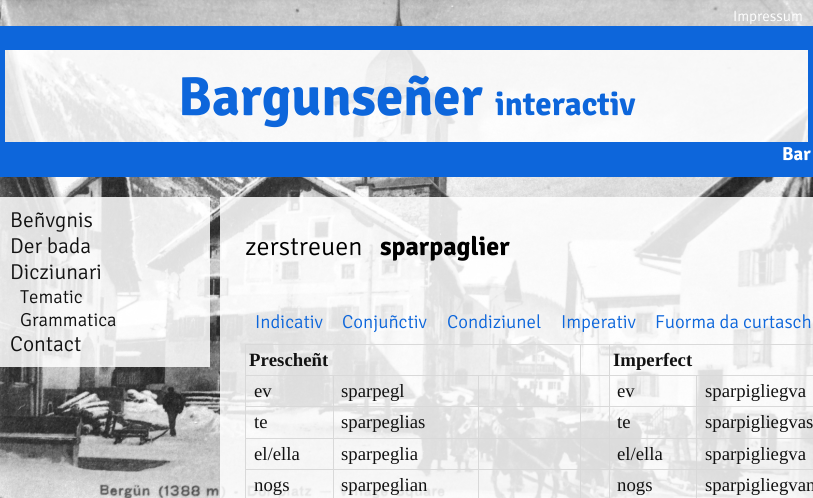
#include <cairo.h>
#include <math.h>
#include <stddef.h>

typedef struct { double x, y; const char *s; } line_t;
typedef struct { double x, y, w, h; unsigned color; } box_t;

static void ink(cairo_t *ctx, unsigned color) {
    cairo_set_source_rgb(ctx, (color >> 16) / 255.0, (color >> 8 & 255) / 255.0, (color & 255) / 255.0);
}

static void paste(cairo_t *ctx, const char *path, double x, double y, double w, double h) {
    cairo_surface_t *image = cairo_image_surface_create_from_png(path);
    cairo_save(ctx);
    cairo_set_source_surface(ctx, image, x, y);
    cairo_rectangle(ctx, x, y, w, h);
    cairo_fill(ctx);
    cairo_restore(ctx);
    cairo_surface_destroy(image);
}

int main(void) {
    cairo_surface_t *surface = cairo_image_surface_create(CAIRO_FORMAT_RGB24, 813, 498);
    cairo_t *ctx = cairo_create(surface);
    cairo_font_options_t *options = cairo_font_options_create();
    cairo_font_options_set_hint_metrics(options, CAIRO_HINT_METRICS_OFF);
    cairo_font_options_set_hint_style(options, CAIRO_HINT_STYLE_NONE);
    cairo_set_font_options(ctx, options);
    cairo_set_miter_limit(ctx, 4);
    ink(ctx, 0xFFFFFF);
    cairo_paint(ctx);
    paste(ctx, "media/1.png", 0, 0, 813, 498);
    cairo_select_font_face(ctx, "Signika Light", CAIRO_FONT_SLANT_NORMAL, CAIRO_FONT_WEIGHT_NORMAL);
    cairo_set_font_size(ctx, 15);
    ink(ctx, 0xFFFFFF);
    cairo_move_to(ctx, 733, 21);
    cairo_show_text(ctx, "Impressum");
    ink(ctx, 0x0D66DB);
    cairo_rectangle(ctx, 0, 26, 813, 24);
    cairo_fill(ctx);
    cairo_rectangle(ctx, 0, 50, 5, 92);
    cairo_fill(ctx);
    cairo_set_source_rgba(ctx, 1, 1, 1, 0.85);
    cairo_rectangle(ctx, 5, 50, 803, 92);
    cairo_fill(ctx);
    cairo_select_font_face(ctx, "Signika", CAIRO_FONT_SLANT_NORMAL, CAIRO_FONT_WEIGHT_BOLD);
    cairo_set_font_size(ctx, 55);
    ink(ctx, 0x0D66DB);
    cairo_move_to(ctx, 178, 115);
    cairo_show_text(ctx, "Bargunseñer");
    cairo_set_font_size(ctx, 33);
    cairo_move_to(ctx, 495, 115);
    cairo_show_text(ctx, "interactiv");
    cairo_rectangle(ctx, 808, 50, 5, 92);
    cairo_fill(ctx);
    cairo_rectangle(ctx, 0, 142, 813, 35);
    cairo_fill(ctx);
    cairo_set_font_size(ctx, 18.75);
    ink(ctx, 0xFFFFFF);
    cairo_move_to(ctx, 782, 160);
    cairo_show_text(ctx, "Bar");
    cairo_set_source_rgba(ctx, 1, 1, 1, 0.85);
    cairo_rectangle(ctx, 0, 197, 210, 170);
    cairo_fill(ctx);
    cairo_select_font_face(ctx, "Signika Light", CAIRO_FONT_SLANT_NORMAL, CAIRO_FONT_WEIGHT_NORMAL);
    cairo_set_font_size(ctx, 21.5);
    ink(ctx, 0x121212);
    {
        static const line_t items[] = {
            {10, 227, "Beñvgnis"},
            {10, 253, "Der bada"},
            {10, 279, "Dicziunari"},
        };
        for (size_t i = 0; i < sizeof items / sizeof *items; i++) {
            cairo_move_to(ctx, items[i].x, items[i].y);
            cairo_show_text(ctx, items[i].s);
        }
    }
    cairo_set_font_size(ctx, 18.75);
    cairo_move_to(ctx, 20, 303);
    cairo_show_text(ctx, "Tematic");
    cairo_move_to(ctx, 20, 326);
    cairo_show_text(ctx, "Grammatica");
    cairo_set_font_size(ctx, 21.5);
    cairo_move_to(ctx, 10, 351);
    cairo_show_text(ctx, "Contact");
    cairo_set_source_rgba(ctx, 1, 1, 1, 0.85);
    cairo_rectangle(ctx, 220, 197, 593, 301);
    cairo_fill(ctx);
    cairo_set_font_size(ctx, 26);
    ink(ctx, 0x000000);
    cairo_move_to(ctx, 245, 255);
    cairo_show_text(ctx, "zerstreuen");
    cairo_select_font_face(ctx, "Signika", CAIRO_FONT_SLANT_NORMAL, CAIRO_FONT_WEIGHT_BOLD);
    cairo_move_to(ctx, 380, 255);
    cairo_show_text(ctx, "sparpaglier");
    cairo_select_font_face(ctx, "Signika Light", CAIRO_FONT_SLANT_NORMAL, CAIRO_FONT_WEIGHT_NORMAL);
    cairo_set_font_size(ctx, 18.75);
    ink(ctx, 0x0D66DB);
    {
        static const line_t items[] = {
            {255, 328, "Indicativ"},
            {342, 328, "Conjuñctiv"},
            {447, 328, "Condiziunel"},
            {561, 328, "Imperativ"},
            {655, 328, "Fuorma da curtasch"},
        };
        for (size_t i = 0; i < sizeof items / sizeof *items; i++) {
            cairo_move_to(ctx, items[i].x, items[i].y);
            cairo_show_text(ctx, items[i].s);
        }
    }
    ink(ctx, 0xD9D9D9);
    cairo_rectangle(ctx, 245, 344, 568, 1);
    cairo_fill(ctx);
    cairo_rectangle(ctx, 245, 344, 1, 154);
    cairo_fill(ctx);
    cairo_select_font_face(ctx, "Liberation Serif", CAIRO_FONT_SLANT_NORMAL, CAIRO_FONT_WEIGHT_BOLD);
    ink(ctx, 0x121212);
    cairo_move_to(ctx, 249, 366);
    cairo_show_text(ctx, "Prescheñt");
    cairo_move_to(ctx, 613, 366);
    cairo_show_text(ctx, "Imperfect");
    ink(ctx, 0xD9D9D9);
    cairo_rectangle(ctx, 245, 375, 568, 1);
    cairo_fill(ctx);
    cairo_select_font_face(ctx, "Liberation Serif", CAIRO_FONT_SLANT_NORMAL, CAIRO_FONT_WEIGHT_NORMAL);
    ink(ctx, 0x121212);
    {
        static const line_t items[] = {
            {254, 397, "ev"},
            {341, 397, "sparpegl"},
            {617, 397, "ev"},
            {705, 397, "sparpigliegva"},
        };
        for (size_t i = 0; i < sizeof items / sizeof *items; i++) {
            cairo_move_to(ctx, items[i].x, items[i].y);
            cairo_show_text(ctx, items[i].s);
        }
    }
    ink(ctx, 0xD9D9D9);
    cairo_rectangle(ctx, 245, 406, 568, 1);
    cairo_fill(ctx);
    ink(ctx, 0x121212);
    {
        static const line_t items[] = {
            {254, 428, "te"},
            {341, 428, "sparpeglias"},
            {617, 428, "te"},
            {705, 428, "sparpigliegvas"},
        };
        for (size_t i = 0; i < sizeof items / sizeof *items; i++) {
            cairo_move_to(ctx, items[i].x, items[i].y);
            cairo_show_text(ctx, items[i].s);
        }
    }
    ink(ctx, 0xD9D9D9);
    cairo_rectangle(ctx, 245, 438, 568, 1);
    cairo_fill(ctx);
    ink(ctx, 0x121212);
    {
        static const line_t items[] = {
            {254, 460, "el/ella"},
            {341, 460, "sparpeglia"},
            {617, 460, "el/ella"},
            {705, 460, "sparpigliegva"},
        };
        for (size_t i = 0; i < sizeof items / sizeof *items; i++) {
            cairo_move_to(ctx, items[i].x, items[i].y);
            cairo_show_text(ctx, items[i].s);
        }
    }
    ink(ctx, 0xD9D9D9);
    cairo_rectangle(ctx, 245, 469, 568, 1);
    cairo_fill(ctx);
    ink(ctx, 0x121212);
    cairo_move_to(ctx, 254, 491);
    cairo_show_text(ctx, "nogs");
    ink(ctx, 0xD9D9D9);
    cairo_rectangle(ctx, 333, 375, 1, 123);
    cairo_fill(ctx);
    ink(ctx, 0x121212);
    cairo_move_to(ctx, 341, 491);
    cairo_show_text(ctx, "sparpeglian");
    {
        static const box_t items[] = {
            {478, 375, 1, 123, 0xD9D9D9},
            {580, 344, 1, 154, 0xD9D9D9},
            {609, 344, 1, 154, 0xD9D9D9},
        };
        for (size_t i = 0; i < sizeof items / sizeof *items; i++) {
            ink(ctx, items[i].color);
            cairo_rectangle(ctx, items[i].x, items[i].y, items[i].w, items[i].h);
            cairo_fill(ctx);
        }
    }
    ink(ctx, 0x121212);
    cairo_move_to(ctx, 617, 491);
    cairo_show_text(ctx, "nogs");
    ink(ctx, 0xD9D9D9);
    cairo_rectangle(ctx, 696, 375, 1, 123);
    cairo_fill(ctx);
    ink(ctx, 0x121212);
    cairo_move_to(ctx, 705, 491);
    cairo_show_text(ctx, "sparpigliegvan");
    cairo_surface_write_to_png(surface, "image.png");
    cairo_font_options_destroy(options);
    cairo_destroy(ctx);
    cairo_surface_destroy(surface);
    return 0;
}
